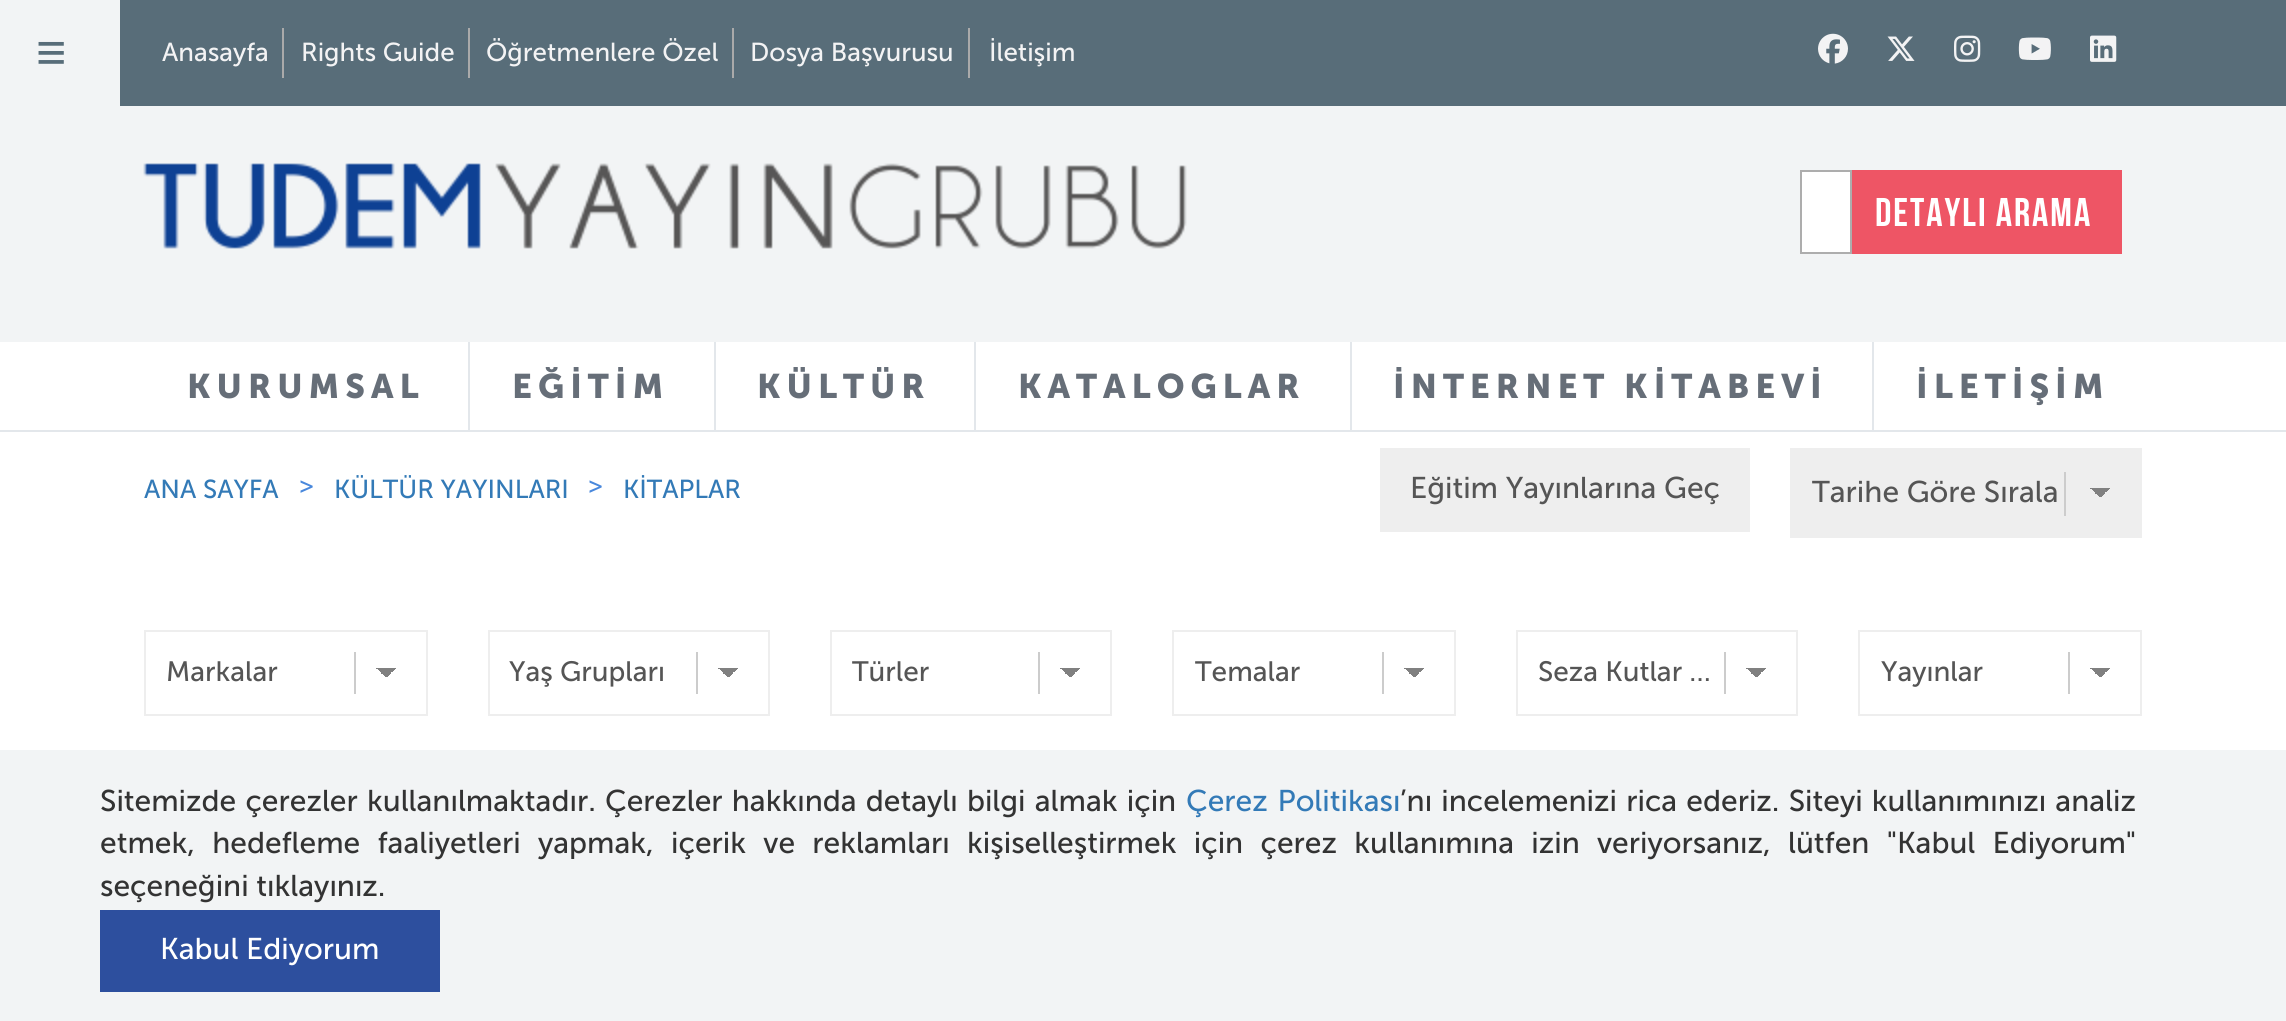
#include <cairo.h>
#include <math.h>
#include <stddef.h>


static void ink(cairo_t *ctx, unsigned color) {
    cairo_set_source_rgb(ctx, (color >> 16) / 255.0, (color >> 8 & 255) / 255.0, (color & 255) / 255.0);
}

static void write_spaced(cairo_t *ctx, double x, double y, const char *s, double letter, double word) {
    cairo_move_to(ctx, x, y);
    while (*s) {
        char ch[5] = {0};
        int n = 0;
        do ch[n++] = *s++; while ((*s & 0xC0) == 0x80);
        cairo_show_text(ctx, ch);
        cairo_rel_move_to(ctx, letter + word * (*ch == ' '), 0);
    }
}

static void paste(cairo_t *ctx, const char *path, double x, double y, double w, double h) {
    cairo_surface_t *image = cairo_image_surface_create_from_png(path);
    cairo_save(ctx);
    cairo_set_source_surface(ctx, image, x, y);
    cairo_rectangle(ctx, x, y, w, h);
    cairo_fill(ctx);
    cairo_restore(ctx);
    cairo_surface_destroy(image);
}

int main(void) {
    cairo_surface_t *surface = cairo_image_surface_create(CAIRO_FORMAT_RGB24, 2286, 1021);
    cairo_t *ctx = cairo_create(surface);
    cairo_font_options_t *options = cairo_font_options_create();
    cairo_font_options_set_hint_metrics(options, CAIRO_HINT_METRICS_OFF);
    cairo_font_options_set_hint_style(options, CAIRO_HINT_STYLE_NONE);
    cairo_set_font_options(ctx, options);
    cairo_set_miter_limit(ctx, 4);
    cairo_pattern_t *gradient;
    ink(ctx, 0xFFFFFF);
    cairo_paint(ctx);
    ink(ctx, 0x586D79);
    cairo_rectangle(ctx, 120, 0, 2166, 106);
    cairo_fill(ctx);
    ink(ctx, 0xF2F4F5);
    cairo_rectangle(ctx, 0, 0, 120, 106);
    cairo_fill(ctx);
    cairo_select_font_face(ctx, "Liberation Sans", CAIRO_FONT_SLANT_NORMAL, CAIRO_FONT_WEIGHT_BOLD);
    cairo_set_font_size(ctx, 52);
    ink(ctx, 0x586D79);
    write_spaced(ctx, 36, 70, "≡", 15, 0);
    ink(ctx, 0xAAAAAA);
    cairo_rectangle(ctx, 282, 28, 2, 50);
    cairo_fill(ctx);
    cairo_select_font_face(ctx, "Museo Sans", CAIRO_FONT_SLANT_NORMAL, CAIRO_FONT_WEIGHT_NORMAL);
    cairo_set_font_size(ctx, 26);
    ink(ctx, 0xF3F3F4);
    cairo_move_to(ctx, 162, 61);
    cairo_show_text(ctx, "Anasayfa");
    ink(ctx, 0xAAAAAA);
    cairo_rectangle(ctx, 468, 28, 2, 50);
    cairo_fill(ctx);
    ink(ctx, 0xF3F3F4);
    cairo_move_to(ctx, 301, 61);
    cairo_show_text(ctx, "Rights Guide");
    ink(ctx, 0xAAAAAA);
    cairo_rectangle(ctx, 732, 28, 2, 50);
    cairo_fill(ctx);
    ink(ctx, 0xF3F3F4);
    cairo_move_to(ctx, 486, 61);
    cairo_show_text(ctx, "Öğretmenlere Özel");
    ink(ctx, 0xAAAAAA);
    cairo_rectangle(ctx, 968, 28, 2, 50);
    cairo_fill(ctx);
    ink(ctx, 0xF3F3F4);
    cairo_move_to(ctx, 750, 61);
    cairo_show_text(ctx, "Dosya Başvurusu");
    cairo_move_to(ctx, 989, 61);
    cairo_show_text(ctx, "İletişim");
    paste(ctx, "media/1.png", 1818, 33, 30, 31);
    paste(ctx, "media/2.png", 1887, 36, 28, 25);
    paste(ctx, "media/3.png", 1954, 35, 27, 27);
    paste(ctx, "media/4.png", 2018, 37, 33, 23);
    paste(ctx, "media/5.png", 2090, 35, 27, 27);
    ink(ctx, 0xF2F4F5);
    cairo_rectangle(ctx, 0, 106, 2286, 236);
    cairo_fill(ctx);
    paste(ctx, "media/6.png", 143, 163, 1044, 86);
    ink(ctx, 0xFFFFFF);
    cairo_rectangle(ctx, 1801, 171, 50, 82);
    cairo_fill_preserve(ctx);
    ink(ctx, 0xADADAD);
    cairo_stroke(ctx);
    ink(ctx, 0xEE5565);
    cairo_rectangle(ctx, 1852, 170, 270, 84);
    cairo_fill(ctx);
    cairo_select_font_face(ctx, "Bebas Neue", CAIRO_FONT_SLANT_NORMAL, CAIRO_FONT_WEIGHT_NORMAL);
    cairo_set_font_size(ctx, 40);
    ink(ctx, 0xFFFFFF);
    write_spaced(ctx, 1875, 226, "DETAYLI ARAMA", 2, 0);
    ink(ctx, 0xE3E7EB);
    cairo_rectangle(ctx, 0, 430, 2286, 2);
    cairo_fill(ctx);
    cairo_rectangle(ctx, 468, 342, 2, 88);
    cairo_fill(ctx);
    cairo_select_font_face(ctx, "Museo Sans", CAIRO_FONT_SLANT_NORMAL, CAIRO_FONT_WEIGHT_BOLD);
    cairo_set_font_size(ctx, 34);
    ink(ctx, 0x666E78);
    write_spaced(ctx, 187, 398, "KURUMSAL", 6, 0);
    ink(ctx, 0xE3E7EB);
    cairo_rectangle(ctx, 714, 342, 2, 88);
    cairo_fill(ctx);
    ink(ctx, 0x666E78);
    write_spaced(ctx, 512, 398, "EĞİTİM", 6, 0);
    ink(ctx, 0xE3E7EB);
    cairo_rectangle(ctx, 974, 342, 2, 88);
    cairo_fill(ctx);
    ink(ctx, 0x666E78);
    write_spaced(ctx, 757, 398, "KÜLTÜR", 6, 0);
    ink(ctx, 0xE3E7EB);
    cairo_rectangle(ctx, 1350, 342, 2, 88);
    cairo_fill(ctx);
    ink(ctx, 0x666E78);
    write_spaced(ctx, 1018, 398, "KATALOGLAR", 6, 0);
    ink(ctx, 0xE3E7EB);
    cairo_rectangle(ctx, 1872, 342, 2, 88);
    cairo_fill(ctx);
    ink(ctx, 0x666E78);
    write_spaced(ctx, 1393, 398, "İNTERNET KİTABEVİ", 6, 0);
    write_spaced(ctx, 1916, 398, "İLETİŞİM", 6, 0);
    cairo_select_font_face(ctx, "Museo Sans", CAIRO_FONT_SLANT_NORMAL, CAIRO_FONT_WEIGHT_NORMAL);
    cairo_set_font_size(ctx, 26);
    ink(ctx, 0x337AB7);
    cairo_move_to(ctx, 144, 498);
    cairo_show_text(ctx, "ANA SAYFA");
    ink(ctx, 0x4988DC);
    cairo_move_to(ctx, 299, 494);
    cairo_show_text(ctx, ">");
    ink(ctx, 0x337AB7);
    cairo_move_to(ctx, 334, 498);
    cairo_show_text(ctx, "KÜLTÜR YAYINLARI");
    ink(ctx, 0x4988DC);
    cairo_move_to(ctx, 588, 494);
    cairo_show_text(ctx, ">");
    ink(ctx, 0x337AB7);
    cairo_move_to(ctx, 623, 498);
    cairo_show_text(ctx, "KİTAPLAR");
    ink(ctx, 0xEEEEEE);
    cairo_rectangle(ctx, 1380, 448, 370, 84);
    cairo_fill(ctx);
    cairo_set_font_size(ctx, 30);
    ink(ctx, 0x555555);
    cairo_move_to(ctx, 1410, 498);
    cairo_show_text(ctx, "Eğitim Yayınlarına Geç");
    ink(ctx, 0xEEEEEE);
    cairo_rectangle(ctx, 1790, 448, 352, 90);
    cairo_fill(ctx);
    ink(ctx, 0xCCCCCC);
    cairo_rectangle(ctx, 2064, 472, 2, 44);
    cairo_fill(ctx);
    gradient = cairo_pattern_create_linear(2100, 488, 2110, 498);
    cairo_pattern_add_color_stop_rgba(gradient, 0.5, 0.502, 0.502, 0.502, 1);
    cairo_pattern_add_color_stop_rgba(gradient, 0.5, 0.933, 0.933, 0.933, 1);
    cairo_set_source(ctx, gradient);
    cairo_pattern_destroy(gradient);
    cairo_rectangle(ctx, 2100, 488, 10, 9);
    cairo_fill(ctx);
    gradient = cairo_pattern_create_linear(2090, 498, 2100, 488);
    cairo_pattern_add_color_stop_rgba(gradient, 0.5, 0.933, 0.933, 0.933, 1);
    cairo_pattern_add_color_stop_rgba(gradient, 0.5, 0.502, 0.502, 0.502, 1);
    cairo_set_source(ctx, gradient);
    cairo_pattern_destroy(gradient);
    cairo_rectangle(ctx, 2090, 488, 10, 9);
    cairo_fill(ctx);
    cairo_save(ctx);
    cairo_rectangle(ctx, 1812, 470, 248, 46);
    cairo_clip(ctx);
    ink(ctx, 0x555555);
    cairo_move_to(ctx, 1812, 502);
    cairo_show_text(ctx, "Tarihe Göre Sırala");
    cairo_restore(ctx);
    ink(ctx, 0xCCCCCC);
    cairo_rectangle(ctx, 354, 652, 2, 42);
    cairo_fill(ctx);
    gradient = cairo_pattern_create_linear(386, 668, 396, 678);
    cairo_pattern_add_color_stop_rgba(gradient, 0.5, 0.502, 0.502, 0.502, 1);
    cairo_pattern_add_color_stop_rgba(gradient, 0.5, 1, 1, 1, 1);
    cairo_set_source(ctx, gradient);
    cairo_pattern_destroy(gradient);
    cairo_rectangle(ctx, 386, 668, 10, 9);
    cairo_fill(ctx);
    gradient = cairo_pattern_create_linear(376, 678, 386, 668);
    cairo_pattern_add_color_stop_rgba(gradient, 0.5, 1, 1, 1, 1);
    cairo_pattern_add_color_stop_rgba(gradient, 0.5, 0.502, 0.502, 0.502, 1);
    cairo_set_source(ctx, gradient);
    cairo_pattern_destroy(gradient);
    cairo_rectangle(ctx, 376, 668, 10, 9);
    cairo_fill(ctx);
    cairo_rectangle(ctx, 145, 631, 282, 84);
    ink(ctx, 0xEEEEEE);
    cairo_stroke(ctx);
    cairo_set_font_size(ctx, 28);
    ink(ctx, 0x555555);
    cairo_move_to(ctx, 166, 681);
    cairo_show_text(ctx, "Markalar");
    ink(ctx, 0xCCCCCC);
    cairo_rectangle(ctx, 696, 652, 2, 42);
    cairo_fill(ctx);
    gradient = cairo_pattern_create_linear(728, 668, 738, 678);
    cairo_pattern_add_color_stop_rgba(gradient, 0.5, 0.502, 0.502, 0.502, 1);
    cairo_pattern_add_color_stop_rgba(gradient, 0.5, 1, 1, 1, 1);
    cairo_set_source(ctx, gradient);
    cairo_pattern_destroy(gradient);
    cairo_rectangle(ctx, 728, 668, 10, 9);
    cairo_fill(ctx);
    gradient = cairo_pattern_create_linear(718, 678, 728, 668);
    cairo_pattern_add_color_stop_rgba(gradient, 0.5, 1, 1, 1, 1);
    cairo_pattern_add_color_stop_rgba(gradient, 0.5, 0.502, 0.502, 0.502, 1);
    cairo_set_source(ctx, gradient);
    cairo_pattern_destroy(gradient);
    cairo_rectangle(ctx, 718, 668, 10, 9);
    cairo_fill(ctx);
    cairo_rectangle(ctx, 489, 631, 280, 84);
    ink(ctx, 0xEEEEEE);
    cairo_stroke(ctx);
    ink(ctx, 0x555555);
    cairo_move_to(ctx, 509, 681);
    cairo_show_text(ctx, "Yaş Grupları");
    ink(ctx, 0xCCCCCC);
    cairo_rectangle(ctx, 1038, 652, 2, 42);
    cairo_fill(ctx);
    gradient = cairo_pattern_create_linear(1070, 668, 1080, 678);
    cairo_pattern_add_color_stop_rgba(gradient, 0.5, 0.502, 0.502, 0.502, 1);
    cairo_pattern_add_color_stop_rgba(gradient, 0.5, 1, 1, 1, 1);
    cairo_set_source(ctx, gradient);
    cairo_pattern_destroy(gradient);
    cairo_rectangle(ctx, 1070, 668, 10, 9);
    cairo_fill(ctx);
    gradient = cairo_pattern_create_linear(1060, 678, 1070, 668);
    cairo_pattern_add_color_stop_rgba(gradient, 0.5, 1, 1, 1, 1);
    cairo_pattern_add_color_stop_rgba(gradient, 0.5, 0.502, 0.502, 0.502, 1);
    cairo_set_source(ctx, gradient);
    cairo_pattern_destroy(gradient);
    cairo_rectangle(ctx, 1060, 668, 10, 9);
    cairo_fill(ctx);
    cairo_rectangle(ctx, 831, 631, 280, 84);
    ink(ctx, 0xEEEEEE);
    cairo_stroke(ctx);
    ink(ctx, 0x555555);
    cairo_move_to(ctx, 852, 681);
    cairo_show_text(ctx, "Türler");
    ink(ctx, 0xCCCCCC);
    cairo_rectangle(ctx, 1382, 652, 2, 42);
    cairo_fill(ctx);
    gradient = cairo_pattern_create_linear(1414, 668, 1424, 678);
    cairo_pattern_add_color_stop_rgba(gradient, 0.5, 0.502, 0.502, 0.502, 1);
    cairo_pattern_add_color_stop_rgba(gradient, 0.5, 1, 1, 1, 1);
    cairo_set_source(ctx, gradient);
    cairo_pattern_destroy(gradient);
    cairo_rectangle(ctx, 1414, 668, 10, 9);
    cairo_fill(ctx);
    gradient = cairo_pattern_create_linear(1404, 678, 1414, 668);
    cairo_pattern_add_color_stop_rgba(gradient, 0.5, 1, 1, 1, 1);
    cairo_pattern_add_color_stop_rgba(gradient, 0.5, 0.502, 0.502, 0.502, 1);
    cairo_set_source(ctx, gradient);
    cairo_pattern_destroy(gradient);
    cairo_rectangle(ctx, 1404, 668, 10, 9);
    cairo_fill(ctx);
    cairo_rectangle(ctx, 1173, 631, 282, 84);
    ink(ctx, 0xEEEEEE);
    cairo_stroke(ctx);
    ink(ctx, 0x555555);
    cairo_move_to(ctx, 1195, 681);
    cairo_show_text(ctx, "Temalar");
    ink(ctx, 0xCCCCCC);
    cairo_rectangle(ctx, 1724, 652, 2, 42);
    cairo_fill(ctx);
    gradient = cairo_pattern_create_linear(1756, 668, 1766, 678);
    cairo_pattern_add_color_stop_rgba(gradient, 0.5, 0.502, 0.502, 0.502, 1);
    cairo_pattern_add_color_stop_rgba(gradient, 0.5, 1, 1, 1, 1);
    cairo_set_source(ctx, gradient);
    cairo_pattern_destroy(gradient);
    cairo_rectangle(ctx, 1756, 668, 10, 9);
    cairo_fill(ctx);
    gradient = cairo_pattern_create_linear(1746, 678, 1756, 668);
    cairo_pattern_add_color_stop_rgba(gradient, 0.5, 1, 1, 1, 1);
    cairo_pattern_add_color_stop_rgba(gradient, 0.5, 0.502, 0.502, 0.502, 1);
    cairo_set_source(ctx, gradient);
    cairo_pattern_destroy(gradient);
    cairo_rectangle(ctx, 1746, 668, 10, 9);
    cairo_fill(ctx);
    cairo_rectangle(ctx, 1517, 631, 280, 84);
    ink(ctx, 0xEEEEEE);
    cairo_stroke(ctx);
    ink(ctx, 0x555555);
    cairo_move_to(ctx, 1538, 681);
    cairo_show_text(ctx, "Seza Kutlar …");
    ink(ctx, 0xCCCCCC);
    cairo_rectangle(ctx, 2068, 652, 2, 42);
    cairo_fill(ctx);
    gradient = cairo_pattern_create_linear(2100, 668, 2110, 678);
    cairo_pattern_add_color_stop_rgba(gradient, 0.5, 0.502, 0.502, 0.502, 1);
    cairo_pattern_add_color_stop_rgba(gradient, 0.5, 1, 1, 1, 1);
    cairo_set_source(ctx, gradient);
    cairo_pattern_destroy(gradient);
    cairo_rectangle(ctx, 2100, 668, 10, 9);
    cairo_fill(ctx);
    gradient = cairo_pattern_create_linear(2090, 678, 2100, 668);
    cairo_pattern_add_color_stop_rgba(gradient, 0.5, 1, 1, 1, 1);
    cairo_pattern_add_color_stop_rgba(gradient, 0.5, 0.502, 0.502, 0.502, 1);
    cairo_set_source(ctx, gradient);
    cairo_pattern_destroy(gradient);
    cairo_rectangle(ctx, 2090, 668, 10, 9);
    cairo_fill(ctx);
    cairo_rectangle(ctx, 1859, 631, 282, 84);
    ink(ctx, 0xEEEEEE);
    cairo_stroke(ctx);
    ink(ctx, 0x555555);
    cairo_move_to(ctx, 1881, 681);
    cairo_show_text(ctx, "Yayınlar");
    ink(ctx, 0xF2F4F5);
    cairo_rectangle(ctx, 0, 750, 2286, 271);
    cairo_fill(ctx);
    cairo_set_font_size(ctx, 30);
    ink(ctx, 0x333333);
    write_spaced(ctx, 100, 811, "Sitemizde çerezler kullanılmaktadır. Çerezler hakkında detaylı bilgi almak için", 0, 1.5);
    ink(ctx, 0x337AB7);
    write_spaced(ctx, 1186, 811, "Çerez Politikası", 0, 2);
    ink(ctx, 0x333333);
    write_spaced(ctx, 1400, 811, "’nı incelemenizi rica ederiz. Siteyi kullanımınızı analiz", 0, 1.5);
    write_spaced(ctx, 100, 853, "etmek, hedefleme faaliyetleri yapmak, içerik ve reklamları kişiselleştirmek için çerez kullanımına izin veriyorsanız, lütfen \"Kabul Ediyorum\"", 0, 9.6);
    cairo_move_to(ctx, 100, 896);
    cairo_show_text(ctx, "seçeneğini tıklayınız.");
    ink(ctx, 0x2D4F9E);
    cairo_rectangle(ctx, 100, 910, 340, 82);
    cairo_fill(ctx);
    ink(ctx, 0xFFFFFF);
    cairo_move_to(ctx, 160, 959);
    cairo_show_text(ctx, "Kabul Ediyorum");
    cairo_surface_write_to_png(surface, "image.png");
    cairo_font_options_destroy(options);
    cairo_destroy(ctx);
    cairo_surface_destroy(surface);
    return 0;
}
